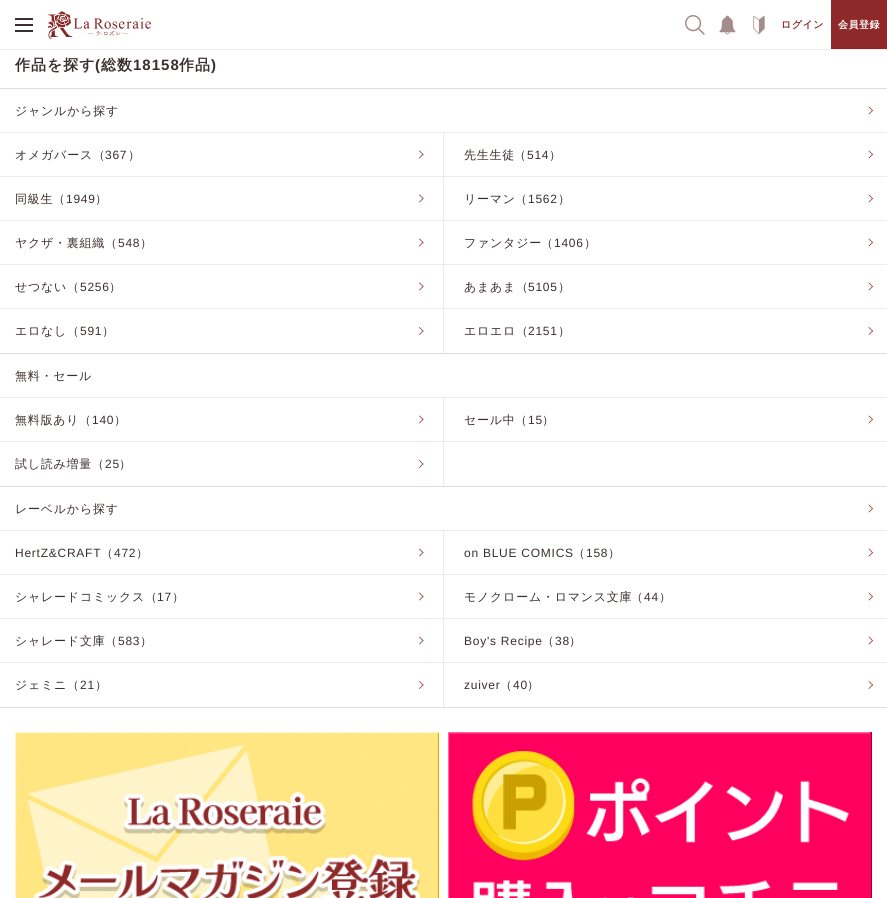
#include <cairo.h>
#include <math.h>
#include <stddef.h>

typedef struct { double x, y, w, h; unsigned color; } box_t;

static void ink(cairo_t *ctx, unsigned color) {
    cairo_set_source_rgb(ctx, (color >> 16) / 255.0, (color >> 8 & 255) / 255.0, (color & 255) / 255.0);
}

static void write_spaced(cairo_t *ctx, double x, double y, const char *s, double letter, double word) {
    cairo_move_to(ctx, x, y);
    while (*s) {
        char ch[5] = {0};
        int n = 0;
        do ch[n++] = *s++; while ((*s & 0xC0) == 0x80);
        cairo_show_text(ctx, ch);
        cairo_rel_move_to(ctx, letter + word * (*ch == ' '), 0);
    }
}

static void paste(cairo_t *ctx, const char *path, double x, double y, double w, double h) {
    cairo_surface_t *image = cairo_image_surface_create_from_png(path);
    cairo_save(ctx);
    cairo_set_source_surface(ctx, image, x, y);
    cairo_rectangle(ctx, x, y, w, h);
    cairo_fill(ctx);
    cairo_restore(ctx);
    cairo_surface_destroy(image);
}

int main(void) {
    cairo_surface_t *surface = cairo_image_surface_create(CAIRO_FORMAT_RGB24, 887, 898);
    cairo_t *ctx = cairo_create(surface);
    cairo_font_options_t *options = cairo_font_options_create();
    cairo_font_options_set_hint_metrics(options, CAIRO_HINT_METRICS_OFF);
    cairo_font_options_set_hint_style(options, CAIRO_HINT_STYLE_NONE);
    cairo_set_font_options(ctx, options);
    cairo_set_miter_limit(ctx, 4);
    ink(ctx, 0xFFFFFF);
    cairo_paint(ctx);
    {
        static const box_t items[] = {
            {0, 49, 887, 1, 0xEBEBEB},
            {15, 18, 18, 2, 0x3A2F2F},
            {15, 24, 18, 2, 0x3A2F2F},
            {15, 30, 18, 2, 0x3A2F2F},
        };
        for (size_t i = 0; i < sizeof items / sizeof *items; i++) {
            ink(ctx, items[i].color);
            cairo_rectangle(ctx, items[i].x, items[i].y, items[i].w, items[i].h);
            cairo_fill(ctx);
        }
    }
    paste(ctx, "media/1.png", 48, 11, 103, 28);
    paste(ctx, "media/2.png", 685, 15, 20, 20);
    paste(ctx, "media/3.png", 719, 15, 17, 20);
    paste(ctx, "media/4.png", 753, 15, 12, 20);
    cairo_select_font_face(ctx, "WenQuanYi Zen Hei", CAIRO_FONT_SLANT_NORMAL, CAIRO_FONT_WEIGHT_BOLD);
    cairo_set_font_size(ctx, 10);
    ink(ctx, 0x8E2829);
    write_spaced(ctx, 781, 28, "ログイン", 0.5, 0);
    cairo_rectangle(ctx, 831, 0, 56, 49);
    cairo_fill(ctx);
    ink(ctx, 0xFFFFFF);
    write_spaced(ctx, 838, 28, "会員登録", 0.5, 0);
    cairo_set_font_size(ctx, 15);
    ink(ctx, 0x3A2F2F);
    write_spaced(ctx, 15, 70, "作品を探す", 1, 0);
    cairo_select_font_face(ctx, "Liberation Sans", CAIRO_FONT_SLANT_NORMAL, CAIRO_FONT_WEIGHT_BOLD);
    write_spaced(ctx, 95, 70, "(", 1, 0);
    cairo_select_font_face(ctx, "WenQuanYi Zen Hei", CAIRO_FONT_SLANT_NORMAL, CAIRO_FONT_WEIGHT_BOLD);
    write_spaced(ctx, 101, 70, "総数", 1, 0);
    cairo_select_font_face(ctx, "Liberation Sans", CAIRO_FONT_SLANT_NORMAL, CAIRO_FONT_WEIGHT_BOLD);
    write_spaced(ctx, 133, 70, "18158", 1, 0);
    cairo_select_font_face(ctx, "WenQuanYi Zen Hei", CAIRO_FONT_SLANT_NORMAL, CAIRO_FONT_WEIGHT_BOLD);
    write_spaced(ctx, 179, 70, "作品", 1, 0);
    cairo_select_font_face(ctx, "Liberation Sans", CAIRO_FONT_SLANT_NORMAL, CAIRO_FONT_WEIGHT_BOLD);
    write_spaced(ctx, 211, 70, ")", 1, 0);
    ink(ctx, 0xDDDDDD);
    cairo_rectangle(ctx, 0, 88, 887, 1);
    cairo_fill(ctx);
    ink(ctx, 0xEBEBEB);
    cairo_rectangle(ctx, 0, 132, 887, 1);
    cairo_fill(ctx);
    cairo_select_font_face(ctx, "WenQuanYi Zen Hei Medium", CAIRO_FONT_SLANT_NORMAL, CAIRO_FONT_WEIGHT_NORMAL);
    cairo_set_font_size(ctx, 12);
    ink(ctx, 0x3A2F2F);
    write_spaced(ctx, 15, 115, "ジャンルから探す", 0.75, 0);
    ink(ctx, 0x8E2829);
    cairo_new_path(ctx);
    cairo_move_to(ctx, 868.5, 107);
    cairo_line_to(ctx, 869, 106.5);
    cairo_line_to(ctx, 873, 110.5);
    cairo_line_to(ctx, 872.5, 111);
    cairo_close_path(ctx);
    cairo_fill(ctx);
    cairo_new_path(ctx);
    cairo_move_to(ctx, 868.5, 114);
    cairo_line_to(ctx, 872.5, 110);
    cairo_line_to(ctx, 873, 110.5);
    cairo_line_to(ctx, 869, 114.5);
    cairo_close_path(ctx);
    cairo_fill(ctx);
    ink(ctx, 0xEBEBEB);
    cairo_rectangle(ctx, 443, 133, 1, 220);
    cairo_fill(ctx);
    cairo_rectangle(ctx, 0, 176, 887, 1);
    cairo_fill(ctx);
    ink(ctx, 0x3A2F2F);
    write_spaced(ctx, 15, 159, "オメガバース", 0.75, 0);
    write_spaced(ctx, 93, 159, "（", 0.75, 0);
    cairo_select_font_face(ctx, "Liberation Sans", CAIRO_FONT_SLANT_NORMAL, CAIRO_FONT_WEIGHT_NORMAL);
    write_spaced(ctx, 105, 159, "367", 0.75, 0);
    cairo_select_font_face(ctx, "WenQuanYi Zen Hei Medium", CAIRO_FONT_SLANT_NORMAL, CAIRO_FONT_WEIGHT_NORMAL);
    write_spaced(ctx, 128, 159, "）", 0.75, 0);
    ink(ctx, 0x8E2829);
    cairo_new_path(ctx);
    cairo_move_to(ctx, 419, 151);
    cairo_line_to(ctx, 419.5, 150.5);
    cairo_line_to(ctx, 423.5, 154.5);
    cairo_line_to(ctx, 423, 155);
    cairo_close_path(ctx);
    cairo_fill(ctx);
    cairo_new_path(ctx);
    cairo_move_to(ctx, 419, 158);
    cairo_line_to(ctx, 423, 154);
    cairo_line_to(ctx, 423.5, 154.5);
    cairo_line_to(ctx, 419.5, 158.5);
    cairo_close_path(ctx);
    cairo_fill(ctx);
    ink(ctx, 0x3A2F2F);
    write_spaced(ctx, 464, 159, "先生生徒", 0.75, 0);
    write_spaced(ctx, 514, 159, "（", 0.75, 0);
    cairo_select_font_face(ctx, "Liberation Sans", CAIRO_FONT_SLANT_NORMAL, CAIRO_FONT_WEIGHT_NORMAL);
    write_spaced(ctx, 527, 159, "514", 0.75, 0);
    cairo_select_font_face(ctx, "WenQuanYi Zen Hei Medium", CAIRO_FONT_SLANT_NORMAL, CAIRO_FONT_WEIGHT_NORMAL);
    write_spaced(ctx, 549, 159, "）", 0.75, 0);
    ink(ctx, 0x8E2829);
    cairo_new_path(ctx);
    cairo_move_to(ctx, 868.5, 151);
    cairo_line_to(ctx, 869, 150.5);
    cairo_line_to(ctx, 873, 154.5);
    cairo_line_to(ctx, 872.5, 155);
    cairo_close_path(ctx);
    cairo_fill(ctx);
    cairo_new_path(ctx);
    cairo_move_to(ctx, 868.5, 158);
    cairo_line_to(ctx, 872.5, 154);
    cairo_line_to(ctx, 873, 154.5);
    cairo_line_to(ctx, 869, 158.5);
    cairo_close_path(ctx);
    cairo_fill(ctx);
    ink(ctx, 0xEBEBEB);
    cairo_rectangle(ctx, 0, 220, 887, 1);
    cairo_fill(ctx);
    ink(ctx, 0x3A2F2F);
    write_spaced(ctx, 15, 203, "同級生", 0.75, 0);
    write_spaced(ctx, 53, 203, "（", 0.75, 0);
    cairo_select_font_face(ctx, "Liberation Sans", CAIRO_FONT_SLANT_NORMAL, CAIRO_FONT_WEIGHT_NORMAL);
    write_spaced(ctx, 66, 203, "1949", 0.75, 0);
    cairo_select_font_face(ctx, "WenQuanYi Zen Hei Medium", CAIRO_FONT_SLANT_NORMAL, CAIRO_FONT_WEIGHT_NORMAL);
    write_spaced(ctx, 95, 203, "）", 0.75, 0);
    ink(ctx, 0x8E2829);
    cairo_new_path(ctx);
    cairo_move_to(ctx, 419, 195);
    cairo_line_to(ctx, 419.5, 194.5);
    cairo_line_to(ctx, 423.5, 198.5);
    cairo_line_to(ctx, 423, 199);
    cairo_close_path(ctx);
    cairo_fill(ctx);
    cairo_new_path(ctx);
    cairo_move_to(ctx, 419, 202);
    cairo_line_to(ctx, 423, 198);
    cairo_line_to(ctx, 423.5, 198.5);
    cairo_line_to(ctx, 419.5, 202.5);
    cairo_close_path(ctx);
    cairo_fill(ctx);
    ink(ctx, 0x3A2F2F);
    write_spaced(ctx, 464, 203, "リーマン", 0.75, 0);
    write_spaced(ctx, 515, 203, "（", 0.75, 0);
    cairo_select_font_face(ctx, "Liberation Sans", CAIRO_FONT_SLANT_NORMAL, CAIRO_FONT_WEIGHT_NORMAL);
    write_spaced(ctx, 528, 203, "1562", 0.75, 0);
    cairo_select_font_face(ctx, "WenQuanYi Zen Hei Medium", CAIRO_FONT_SLANT_NORMAL, CAIRO_FONT_WEIGHT_NORMAL);
    write_spaced(ctx, 558, 203, "）", 0.75, 0);
    ink(ctx, 0x8E2829);
    cairo_new_path(ctx);
    cairo_move_to(ctx, 868.5, 195);
    cairo_line_to(ctx, 869, 194.5);
    cairo_line_to(ctx, 873, 198.5);
    cairo_line_to(ctx, 872.5, 199);
    cairo_close_path(ctx);
    cairo_fill(ctx);
    cairo_new_path(ctx);
    cairo_move_to(ctx, 868.5, 202);
    cairo_line_to(ctx, 872.5, 198);
    cairo_line_to(ctx, 873, 198.5);
    cairo_line_to(ctx, 869, 202.5);
    cairo_close_path(ctx);
    cairo_fill(ctx);
    ink(ctx, 0xEBEBEB);
    cairo_rectangle(ctx, 0, 264, 887, 1);
    cairo_fill(ctx);
    ink(ctx, 0x3A2F2F);
    write_spaced(ctx, 15, 247, "ヤクザ・裏組織", 0.75, 0);
    write_spaced(ctx, 105, 247, "（", 0.75, 0);
    cairo_select_font_face(ctx, "Liberation Sans", CAIRO_FONT_SLANT_NORMAL, CAIRO_FONT_WEIGHT_NORMAL);
    write_spaced(ctx, 118, 247, "548", 0.75, 0);
    cairo_select_font_face(ctx, "WenQuanYi Zen Hei Medium", CAIRO_FONT_SLANT_NORMAL, CAIRO_FONT_WEIGHT_NORMAL);
    write_spaced(ctx, 140, 247, "）", 0.75, 0);
    ink(ctx, 0x8E2829);
    cairo_new_path(ctx);
    cairo_move_to(ctx, 419, 239);
    cairo_line_to(ctx, 419.5, 238.5);
    cairo_line_to(ctx, 423.5, 242.5);
    cairo_line_to(ctx, 423, 243);
    cairo_close_path(ctx);
    cairo_fill(ctx);
    cairo_new_path(ctx);
    cairo_move_to(ctx, 419, 246);
    cairo_line_to(ctx, 423, 242);
    cairo_line_to(ctx, 423.5, 242.5);
    cairo_line_to(ctx, 419.5, 246.5);
    cairo_close_path(ctx);
    cairo_fill(ctx);
    ink(ctx, 0x3A2F2F);
    write_spaced(ctx, 464, 247, "ファンタジー", 0.75, 0);
    write_spaced(ctx, 541, 247, "（", 0.75, 0);
    cairo_select_font_face(ctx, "Liberation Sans", CAIRO_FONT_SLANT_NORMAL, CAIRO_FONT_WEIGHT_NORMAL);
    write_spaced(ctx, 554, 247, "1406", 0.75, 0);
    cairo_select_font_face(ctx, "WenQuanYi Zen Hei Medium", CAIRO_FONT_SLANT_NORMAL, CAIRO_FONT_WEIGHT_NORMAL);
    write_spaced(ctx, 584, 247, "）", 0.75, 0);
    ink(ctx, 0x8E2829);
    cairo_new_path(ctx);
    cairo_move_to(ctx, 868.5, 239);
    cairo_line_to(ctx, 869, 238.5);
    cairo_line_to(ctx, 873, 242.5);
    cairo_line_to(ctx, 872.5, 243);
    cairo_close_path(ctx);
    cairo_fill(ctx);
    cairo_new_path(ctx);
    cairo_move_to(ctx, 868.5, 246);
    cairo_line_to(ctx, 872.5, 242);
    cairo_line_to(ctx, 873, 242.5);
    cairo_line_to(ctx, 869, 246.5);
    cairo_close_path(ctx);
    cairo_fill(ctx);
    ink(ctx, 0xEBEBEB);
    cairo_rectangle(ctx, 0, 308, 887, 1);
    cairo_fill(ctx);
    ink(ctx, 0x3A2F2F);
    write_spaced(ctx, 15, 291, "せつない", 0.75, 0);
    write_spaced(ctx, 67, 291, "（", 0.75, 0);
    cairo_select_font_face(ctx, "Liberation Sans", CAIRO_FONT_SLANT_NORMAL, CAIRO_FONT_WEIGHT_NORMAL);
    write_spaced(ctx, 80, 291, "5256", 0.75, 0);
    cairo_select_font_face(ctx, "WenQuanYi Zen Hei Medium", CAIRO_FONT_SLANT_NORMAL, CAIRO_FONT_WEIGHT_NORMAL);
    write_spaced(ctx, 109, 291, "）", 0.75, 0);
    ink(ctx, 0x8E2829);
    cairo_new_path(ctx);
    cairo_move_to(ctx, 419, 283);
    cairo_line_to(ctx, 419.5, 282.5);
    cairo_line_to(ctx, 423.5, 286.5);
    cairo_line_to(ctx, 423, 287);
    cairo_close_path(ctx);
    cairo_fill(ctx);
    cairo_new_path(ctx);
    cairo_move_to(ctx, 419, 290);
    cairo_line_to(ctx, 423, 286);
    cairo_line_to(ctx, 423.5, 286.5);
    cairo_line_to(ctx, 419.5, 290.5);
    cairo_close_path(ctx);
    cairo_fill(ctx);
    ink(ctx, 0x3A2F2F);
    write_spaced(ctx, 464, 291, "あまあま", 0.75, 0);
    write_spaced(ctx, 516, 291, "（", 0.75, 0);
    cairo_select_font_face(ctx, "Liberation Sans", CAIRO_FONT_SLANT_NORMAL, CAIRO_FONT_WEIGHT_NORMAL);
    write_spaced(ctx, 528, 291, "5105", 0.75, 0);
    cairo_select_font_face(ctx, "WenQuanYi Zen Hei Medium", CAIRO_FONT_SLANT_NORMAL, CAIRO_FONT_WEIGHT_NORMAL);
    write_spaced(ctx, 558, 291, "）", 0.75, 0);
    ink(ctx, 0x8E2829);
    cairo_new_path(ctx);
    cairo_move_to(ctx, 868.5, 283);
    cairo_line_to(ctx, 869, 282.5);
    cairo_line_to(ctx, 873, 286.5);
    cairo_line_to(ctx, 872.5, 287);
    cairo_close_path(ctx);
    cairo_fill(ctx);
    cairo_new_path(ctx);
    cairo_move_to(ctx, 868.5, 290);
    cairo_line_to(ctx, 872.5, 286);
    cairo_line_to(ctx, 873, 286.5);
    cairo_line_to(ctx, 869, 290.5);
    cairo_close_path(ctx);
    cairo_fill(ctx);
    ink(ctx, 0x3A2F2F);
    write_spaced(ctx, 15, 335, "エロなし", 0.75, 0);
    write_spaced(ctx, 67, 335, "（", 0.75, 0);
    cairo_select_font_face(ctx, "Liberation Sans", CAIRO_FONT_SLANT_NORMAL, CAIRO_FONT_WEIGHT_NORMAL);
    write_spaced(ctx, 80, 335, "591", 0.75, 0);
    cairo_select_font_face(ctx, "WenQuanYi Zen Hei Medium", CAIRO_FONT_SLANT_NORMAL, CAIRO_FONT_WEIGHT_NORMAL);
    write_spaced(ctx, 102, 335, "）", 0.75, 0);
    ink(ctx, 0x8E2829);
    cairo_new_path(ctx);
    cairo_move_to(ctx, 419, 327.5);
    cairo_line_to(ctx, 419.5, 327);
    cairo_line_to(ctx, 423.5, 331);
    cairo_line_to(ctx, 423, 331.5);
    cairo_close_path(ctx);
    cairo_fill(ctx);
    cairo_new_path(ctx);
    cairo_move_to(ctx, 419, 334.5);
    cairo_line_to(ctx, 423, 330.5);
    cairo_line_to(ctx, 423.5, 331);
    cairo_line_to(ctx, 419.5, 335);
    cairo_close_path(ctx);
    cairo_fill(ctx);
    ink(ctx, 0x3A2F2F);
    write_spaced(ctx, 464, 335, "エロエロ", 0.75, 0);
    write_spaced(ctx, 516, 335, "（", 0.75, 0);
    cairo_select_font_face(ctx, "Liberation Sans", CAIRO_FONT_SLANT_NORMAL, CAIRO_FONT_WEIGHT_NORMAL);
    write_spaced(ctx, 528, 335, "2151", 0.75, 0);
    cairo_select_font_face(ctx, "WenQuanYi Zen Hei Medium", CAIRO_FONT_SLANT_NORMAL, CAIRO_FONT_WEIGHT_NORMAL);
    write_spaced(ctx, 558, 335, "）", 0.75, 0);
    ink(ctx, 0x8E2829);
    cairo_new_path(ctx);
    cairo_move_to(ctx, 868.5, 327.5);
    cairo_line_to(ctx, 869, 327);
    cairo_line_to(ctx, 873, 331);
    cairo_line_to(ctx, 872.5, 331.5);
    cairo_close_path(ctx);
    cairo_fill(ctx);
    cairo_new_path(ctx);
    cairo_move_to(ctx, 868.5, 334.5);
    cairo_line_to(ctx, 872.5, 330.5);
    cairo_line_to(ctx, 873, 331);
    cairo_line_to(ctx, 869, 335);
    cairo_close_path(ctx);
    cairo_fill(ctx);
    ink(ctx, 0xDDDDDD);
    cairo_rectangle(ctx, 0, 353, 887, 1);
    cairo_fill(ctx);
    ink(ctx, 0xEBEBEB);
    cairo_rectangle(ctx, 0, 397, 887, 1);
    cairo_fill(ctx);
    ink(ctx, 0x3A2F2F);
    write_spaced(ctx, 15, 380, "無料・セール", 0.75, 0);
    ink(ctx, 0xEBEBEB);
    cairo_rectangle(ctx, 443, 398, 1, 88);
    cairo_fill(ctx);
    cairo_rectangle(ctx, 0, 441, 887, 1);
    cairo_fill(ctx);
    ink(ctx, 0x3A2F2F);
    write_spaced(ctx, 15, 424, "無料版あり", 0.75, 0);
    write_spaced(ctx, 79, 424, "（", 0.75, 0);
    cairo_select_font_face(ctx, "Liberation Sans", CAIRO_FONT_SLANT_NORMAL, CAIRO_FONT_WEIGHT_NORMAL);
    write_spaced(ctx, 92, 424, "140", 0.75, 0);
    cairo_select_font_face(ctx, "WenQuanYi Zen Hei Medium", CAIRO_FONT_SLANT_NORMAL, CAIRO_FONT_WEIGHT_NORMAL);
    write_spaced(ctx, 114, 424, "）", 0.75, 0);
    ink(ctx, 0x8E2829);
    cairo_new_path(ctx);
    cairo_move_to(ctx, 419, 416);
    cairo_line_to(ctx, 419.5, 415.5);
    cairo_line_to(ctx, 423.5, 419.5);
    cairo_line_to(ctx, 423, 420);
    cairo_close_path(ctx);
    cairo_fill(ctx);
    cairo_new_path(ctx);
    cairo_move_to(ctx, 419, 423);
    cairo_line_to(ctx, 423, 419);
    cairo_line_to(ctx, 423.5, 419.5);
    cairo_line_to(ctx, 419.5, 423.5);
    cairo_close_path(ctx);
    cairo_fill(ctx);
    ink(ctx, 0x3A2F2F);
    write_spaced(ctx, 464, 424, "セール中", 0.75, 0);
    write_spaced(ctx, 515, 424, "（", 0.75, 0);
    cairo_select_font_face(ctx, "Liberation Sans", CAIRO_FONT_SLANT_NORMAL, CAIRO_FONT_WEIGHT_NORMAL);
    write_spaced(ctx, 528, 424, "15", 0.75, 0);
    cairo_select_font_face(ctx, "WenQuanYi Zen Hei Medium", CAIRO_FONT_SLANT_NORMAL, CAIRO_FONT_WEIGHT_NORMAL);
    write_spaced(ctx, 542, 424, "）", 0.75, 0);
    ink(ctx, 0x8E2829);
    cairo_new_path(ctx);
    cairo_move_to(ctx, 868.5, 416);
    cairo_line_to(ctx, 869, 415.5);
    cairo_line_to(ctx, 873, 419.5);
    cairo_line_to(ctx, 872.5, 420);
    cairo_close_path(ctx);
    cairo_fill(ctx);
    cairo_new_path(ctx);
    cairo_move_to(ctx, 868.5, 423);
    cairo_line_to(ctx, 872.5, 419);
    cairo_line_to(ctx, 873, 419.5);
    cairo_line_to(ctx, 869, 423.5);
    cairo_close_path(ctx);
    cairo_fill(ctx);
    ink(ctx, 0x3A2F2F);
    write_spaced(ctx, 15, 468, "試し読み増量", 0.75, 0);
    write_spaced(ctx, 92, 468, "（", 0.75, 0);
    cairo_select_font_face(ctx, "Liberation Sans", CAIRO_FONT_SLANT_NORMAL, CAIRO_FONT_WEIGHT_NORMAL);
    write_spaced(ctx, 105, 468, "25", 0.75, 0);
    cairo_select_font_face(ctx, "WenQuanYi Zen Hei Medium", CAIRO_FONT_SLANT_NORMAL, CAIRO_FONT_WEIGHT_NORMAL);
    write_spaced(ctx, 119, 468, "）", 0.75, 0);
    ink(ctx, 0x8E2829);
    cairo_new_path(ctx);
    cairo_move_to(ctx, 419, 460.5);
    cairo_line_to(ctx, 419.5, 460);
    cairo_line_to(ctx, 423.5, 464);
    cairo_line_to(ctx, 423, 464.5);
    cairo_close_path(ctx);
    cairo_fill(ctx);
    cairo_new_path(ctx);
    cairo_move_to(ctx, 419, 467.5);
    cairo_line_to(ctx, 423, 463.5);
    cairo_line_to(ctx, 423.5, 464);
    cairo_line_to(ctx, 419.5, 468);
    cairo_close_path(ctx);
    cairo_fill(ctx);
    {
        static const box_t items[] = {
            {0, 486, 887, 1, 0xDDDDDD},
            {0, 707, 887, 1, 0xDDDDDD},
            {0, 530, 887, 1, 0xEBEBEB},
        };
        for (size_t i = 0; i < sizeof items / sizeof *items; i++) {
            ink(ctx, items[i].color);
            cairo_rectangle(ctx, items[i].x, items[i].y, items[i].w, items[i].h);
            cairo_fill(ctx);
        }
    }
    ink(ctx, 0x3A2F2F);
    write_spaced(ctx, 15, 513, "レーベルから探す", 0.75, 0);
    ink(ctx, 0x8E2829);
    cairo_new_path(ctx);
    cairo_move_to(ctx, 868.5, 505);
    cairo_line_to(ctx, 869, 504.5);
    cairo_line_to(ctx, 873, 508.5);
    cairo_line_to(ctx, 872.5, 509);
    cairo_close_path(ctx);
    cairo_fill(ctx);
    cairo_new_path(ctx);
    cairo_move_to(ctx, 868.5, 512);
    cairo_line_to(ctx, 872.5, 508);
    cairo_line_to(ctx, 873, 508.5);
    cairo_line_to(ctx, 869, 512.5);
    cairo_close_path(ctx);
    cairo_fill(ctx);
    ink(ctx, 0xEBEBEB);
    cairo_rectangle(ctx, 443, 531, 1, 176);
    cairo_fill(ctx);
    cairo_rectangle(ctx, 0, 574, 887, 1);
    cairo_fill(ctx);
    cairo_select_font_face(ctx, "Liberation Sans", CAIRO_FONT_SLANT_NORMAL, CAIRO_FONT_WEIGHT_NORMAL);
    ink(ctx, 0x3A2F2F);
    write_spaced(ctx, 15, 557, "HertZ&CRAFT", 0.75, 0);
    cairo_select_font_face(ctx, "WenQuanYi Zen Hei Medium", CAIRO_FONT_SLANT_NORMAL, CAIRO_FONT_WEIGHT_NORMAL);
    write_spaced(ctx, 101, 557, "（", 0.75, 0);
    cairo_select_font_face(ctx, "Liberation Sans", CAIRO_FONT_SLANT_NORMAL, CAIRO_FONT_WEIGHT_NORMAL);
    write_spaced(ctx, 114, 557, "472", 0.75, 0);
    cairo_select_font_face(ctx, "WenQuanYi Zen Hei Medium", CAIRO_FONT_SLANT_NORMAL, CAIRO_FONT_WEIGHT_NORMAL);
    write_spaced(ctx, 136, 557, "）", 0.75, 0);
    ink(ctx, 0x8E2829);
    cairo_new_path(ctx);
    cairo_move_to(ctx, 419, 549);
    cairo_line_to(ctx, 419.5, 548.5);
    cairo_line_to(ctx, 423.5, 552.5);
    cairo_line_to(ctx, 423, 553);
    cairo_close_path(ctx);
    cairo_fill(ctx);
    cairo_new_path(ctx);
    cairo_move_to(ctx, 419, 556);
    cairo_line_to(ctx, 423, 552);
    cairo_line_to(ctx, 423.5, 552.5);
    cairo_line_to(ctx, 419.5, 556.5);
    cairo_close_path(ctx);
    cairo_fill(ctx);
    cairo_select_font_face(ctx, "Liberation Sans", CAIRO_FONT_SLANT_NORMAL, CAIRO_FONT_WEIGHT_NORMAL);
    ink(ctx, 0x3A2F2F);
    write_spaced(ctx, 464, 557, "on BLUE COMICS", 0.75, 0);
    cairo_select_font_face(ctx, "WenQuanYi Zen Hei Medium", CAIRO_FONT_SLANT_NORMAL, CAIRO_FONT_WEIGHT_NORMAL);
    write_spaced(ctx, 573, 557, "（", 0.75, 0);
    cairo_select_font_face(ctx, "Liberation Sans", CAIRO_FONT_SLANT_NORMAL, CAIRO_FONT_WEIGHT_NORMAL);
    write_spaced(ctx, 586, 557, "158", 0.75, 0);
    cairo_select_font_face(ctx, "WenQuanYi Zen Hei Medium", CAIRO_FONT_SLANT_NORMAL, CAIRO_FONT_WEIGHT_NORMAL);
    write_spaced(ctx, 608, 557, "）", 0.75, 0);
    ink(ctx, 0x8E2829);
    cairo_new_path(ctx);
    cairo_move_to(ctx, 868.5, 549);
    cairo_line_to(ctx, 869, 548.5);
    cairo_line_to(ctx, 873, 552.5);
    cairo_line_to(ctx, 872.5, 553);
    cairo_close_path(ctx);
    cairo_fill(ctx);
    cairo_new_path(ctx);
    cairo_move_to(ctx, 868.5, 556);
    cairo_line_to(ctx, 872.5, 552);
    cairo_line_to(ctx, 873, 552.5);
    cairo_line_to(ctx, 869, 556.5);
    cairo_close_path(ctx);
    cairo_fill(ctx);
    ink(ctx, 0xEBEBEB);
    cairo_rectangle(ctx, 0, 618, 887, 1);
    cairo_fill(ctx);
    ink(ctx, 0x3A2F2F);
    write_spaced(ctx, 15, 601, "シャレードコミックス", 0.75, 0);
    write_spaced(ctx, 145, 601, "（", 0.75, 0);
    cairo_select_font_face(ctx, "Liberation Sans", CAIRO_FONT_SLANT_NORMAL, CAIRO_FONT_WEIGHT_NORMAL);
    write_spaced(ctx, 157, 601, "17", 0.75, 0);
    cairo_select_font_face(ctx, "WenQuanYi Zen Hei Medium", CAIRO_FONT_SLANT_NORMAL, CAIRO_FONT_WEIGHT_NORMAL);
    write_spaced(ctx, 172, 601, "）", 0.75, 0);
    ink(ctx, 0x8E2829);
    cairo_new_path(ctx);
    cairo_move_to(ctx, 419, 593);
    cairo_line_to(ctx, 419.5, 592.5);
    cairo_line_to(ctx, 423.5, 596.5);
    cairo_line_to(ctx, 423, 597);
    cairo_close_path(ctx);
    cairo_fill(ctx);
    cairo_new_path(ctx);
    cairo_move_to(ctx, 419, 600);
    cairo_line_to(ctx, 423, 596);
    cairo_line_to(ctx, 423.5, 596.5);
    cairo_line_to(ctx, 419.5, 600.5);
    cairo_close_path(ctx);
    cairo_fill(ctx);
    ink(ctx, 0x3A2F2F);
    write_spaced(ctx, 464, 601, "モノクローム・ロマンス文庫", 0.75, 0);
    write_spaced(ctx, 631, 601, "（", 0.75, 0);
    cairo_select_font_face(ctx, "Liberation Sans", CAIRO_FONT_SLANT_NORMAL, CAIRO_FONT_WEIGHT_NORMAL);
    write_spaced(ctx, 644, 601, "44", 0.75, 0);
    cairo_select_font_face(ctx, "WenQuanYi Zen Hei Medium", CAIRO_FONT_SLANT_NORMAL, CAIRO_FONT_WEIGHT_NORMAL);
    write_spaced(ctx, 659, 601, "）", 0.75, 0);
    ink(ctx, 0x8E2829);
    cairo_new_path(ctx);
    cairo_move_to(ctx, 868.5, 593);
    cairo_line_to(ctx, 869, 592.5);
    cairo_line_to(ctx, 873, 596.5);
    cairo_line_to(ctx, 872.5, 597);
    cairo_close_path(ctx);
    cairo_fill(ctx);
    cairo_new_path(ctx);
    cairo_move_to(ctx, 868.5, 600);
    cairo_line_to(ctx, 872.5, 596);
    cairo_line_to(ctx, 873, 596.5);
    cairo_line_to(ctx, 869, 600.5);
    cairo_close_path(ctx);
    cairo_fill(ctx);
    ink(ctx, 0xEBEBEB);
    cairo_rectangle(ctx, 0, 662, 887, 1);
    cairo_fill(ctx);
    ink(ctx, 0x3A2F2F);
    write_spaced(ctx, 15, 645, "シャレード文庫", 0.75, 0);
    write_spaced(ctx, 105, 645, "（", 0.75, 0);
    cairo_select_font_face(ctx, "Liberation Sans", CAIRO_FONT_SLANT_NORMAL, CAIRO_FONT_WEIGHT_NORMAL);
    write_spaced(ctx, 118, 645, "583", 0.75, 0);
    cairo_select_font_face(ctx, "WenQuanYi Zen Hei Medium", CAIRO_FONT_SLANT_NORMAL, CAIRO_FONT_WEIGHT_NORMAL);
    write_spaced(ctx, 140, 645, "）", 0.75, 0);
    ink(ctx, 0x8E2829);
    cairo_new_path(ctx);
    cairo_move_to(ctx, 419, 637);
    cairo_line_to(ctx, 419.5, 636.5);
    cairo_line_to(ctx, 423.5, 640.5);
    cairo_line_to(ctx, 423, 641);
    cairo_close_path(ctx);
    cairo_fill(ctx);
    cairo_new_path(ctx);
    cairo_move_to(ctx, 419, 644);
    cairo_line_to(ctx, 423, 640);
    cairo_line_to(ctx, 423.5, 640.5);
    cairo_line_to(ctx, 419.5, 644.5);
    cairo_close_path(ctx);
    cairo_fill(ctx);
    cairo_select_font_face(ctx, "Liberation Sans", CAIRO_FONT_SLANT_NORMAL, CAIRO_FONT_WEIGHT_NORMAL);
    ink(ctx, 0x3A2F2F);
    write_spaced(ctx, 464, 645, "Boy's Recipe", 0.75, 0);
    cairo_select_font_face(ctx, "WenQuanYi Zen Hei Medium", CAIRO_FONT_SLANT_NORMAL, CAIRO_FONT_WEIGHT_NORMAL);
    write_spaced(ctx, 542, 645, "（", 0.75, 0);
    cairo_select_font_face(ctx, "Liberation Sans", CAIRO_FONT_SLANT_NORMAL, CAIRO_FONT_WEIGHT_NORMAL);
    write_spaced(ctx, 555, 645, "38", 0.75, 0);
    cairo_select_font_face(ctx, "WenQuanYi Zen Hei Medium", CAIRO_FONT_SLANT_NORMAL, CAIRO_FONT_WEIGHT_NORMAL);
    write_spaced(ctx, 569, 645, "）", 0.75, 0);
    ink(ctx, 0x8E2829);
    cairo_new_path(ctx);
    cairo_move_to(ctx, 868.5, 637);
    cairo_line_to(ctx, 869, 636.5);
    cairo_line_to(ctx, 873, 640.5);
    cairo_line_to(ctx, 872.5, 641);
    cairo_close_path(ctx);
    cairo_fill(ctx);
    cairo_new_path(ctx);
    cairo_move_to(ctx, 868.5, 644);
    cairo_line_to(ctx, 872.5, 640);
    cairo_line_to(ctx, 873, 640.5);
    cairo_line_to(ctx, 869, 644.5);
    cairo_close_path(ctx);
    cairo_fill(ctx);
    ink(ctx, 0x3A2F2F);
    write_spaced(ctx, 15, 689, "ジェミニ", 0.75, 0);
    write_spaced(ctx, 67, 689, "（", 0.75, 0);
    cairo_select_font_face(ctx, "Liberation Sans", CAIRO_FONT_SLANT_NORMAL, CAIRO_FONT_WEIGHT_NORMAL);
    write_spaced(ctx, 80, 689, "21", 0.75, 0);
    cairo_select_font_face(ctx, "WenQuanYi Zen Hei Medium", CAIRO_FONT_SLANT_NORMAL, CAIRO_FONT_WEIGHT_NORMAL);
    write_spaced(ctx, 95, 689, "）", 0.75, 0);
    ink(ctx, 0x8E2829);
    cairo_new_path(ctx);
    cairo_move_to(ctx, 419, 681.5);
    cairo_line_to(ctx, 419.5, 681);
    cairo_line_to(ctx, 423.5, 685);
    cairo_line_to(ctx, 423, 685.5);
    cairo_close_path(ctx);
    cairo_fill(ctx);
    cairo_new_path(ctx);
    cairo_move_to(ctx, 419, 688.5);
    cairo_line_to(ctx, 423, 684.5);
    cairo_line_to(ctx, 423.5, 685);
    cairo_line_to(ctx, 419.5, 689);
    cairo_close_path(ctx);
    cairo_fill(ctx);
    cairo_select_font_face(ctx, "Liberation Sans", CAIRO_FONT_SLANT_NORMAL, CAIRO_FONT_WEIGHT_NORMAL);
    ink(ctx, 0x3A2F2F);
    write_spaced(ctx, 464, 689, "zuiver", 0.75, 0);
    cairo_select_font_face(ctx, "WenQuanYi Zen Hei Medium", CAIRO_FONT_SLANT_NORMAL, CAIRO_FONT_WEIGHT_NORMAL);
    write_spaced(ctx, 500, 689, "（", 0.75, 0);
    cairo_select_font_face(ctx, "Liberation Sans", CAIRO_FONT_SLANT_NORMAL, CAIRO_FONT_WEIGHT_NORMAL);
    write_spaced(ctx, 513, 689, "40", 0.75, 0);
    cairo_select_font_face(ctx, "WenQuanYi Zen Hei Medium", CAIRO_FONT_SLANT_NORMAL, CAIRO_FONT_WEIGHT_NORMAL);
    write_spaced(ctx, 527, 689, "）", 0.75, 0);
    ink(ctx, 0x8E2829);
    cairo_new_path(ctx);
    cairo_move_to(ctx, 868.5, 681.5);
    cairo_line_to(ctx, 869, 681);
    cairo_line_to(ctx, 873, 685);
    cairo_line_to(ctx, 872.5, 685.5);
    cairo_close_path(ctx);
    cairo_fill(ctx);
    cairo_new_path(ctx);
    cairo_move_to(ctx, 868.5, 688.5);
    cairo_line_to(ctx, 872.5, 684.5);
    cairo_line_to(ctx, 873, 685);
    cairo_line_to(ctx, 869, 689);
    cairo_close_path(ctx);
    cairo_fill(ctx);
    paste(ctx, "media/5.png", 15, 732, 424, 166);
    paste(ctx, "media/6.png", 448, 732, 424, 166);
    cairo_surface_write_to_png(surface, "image.png");
    cairo_font_options_destroy(options);
    cairo_destroy(ctx);
    cairo_surface_destroy(surface);
    return 0;
}
